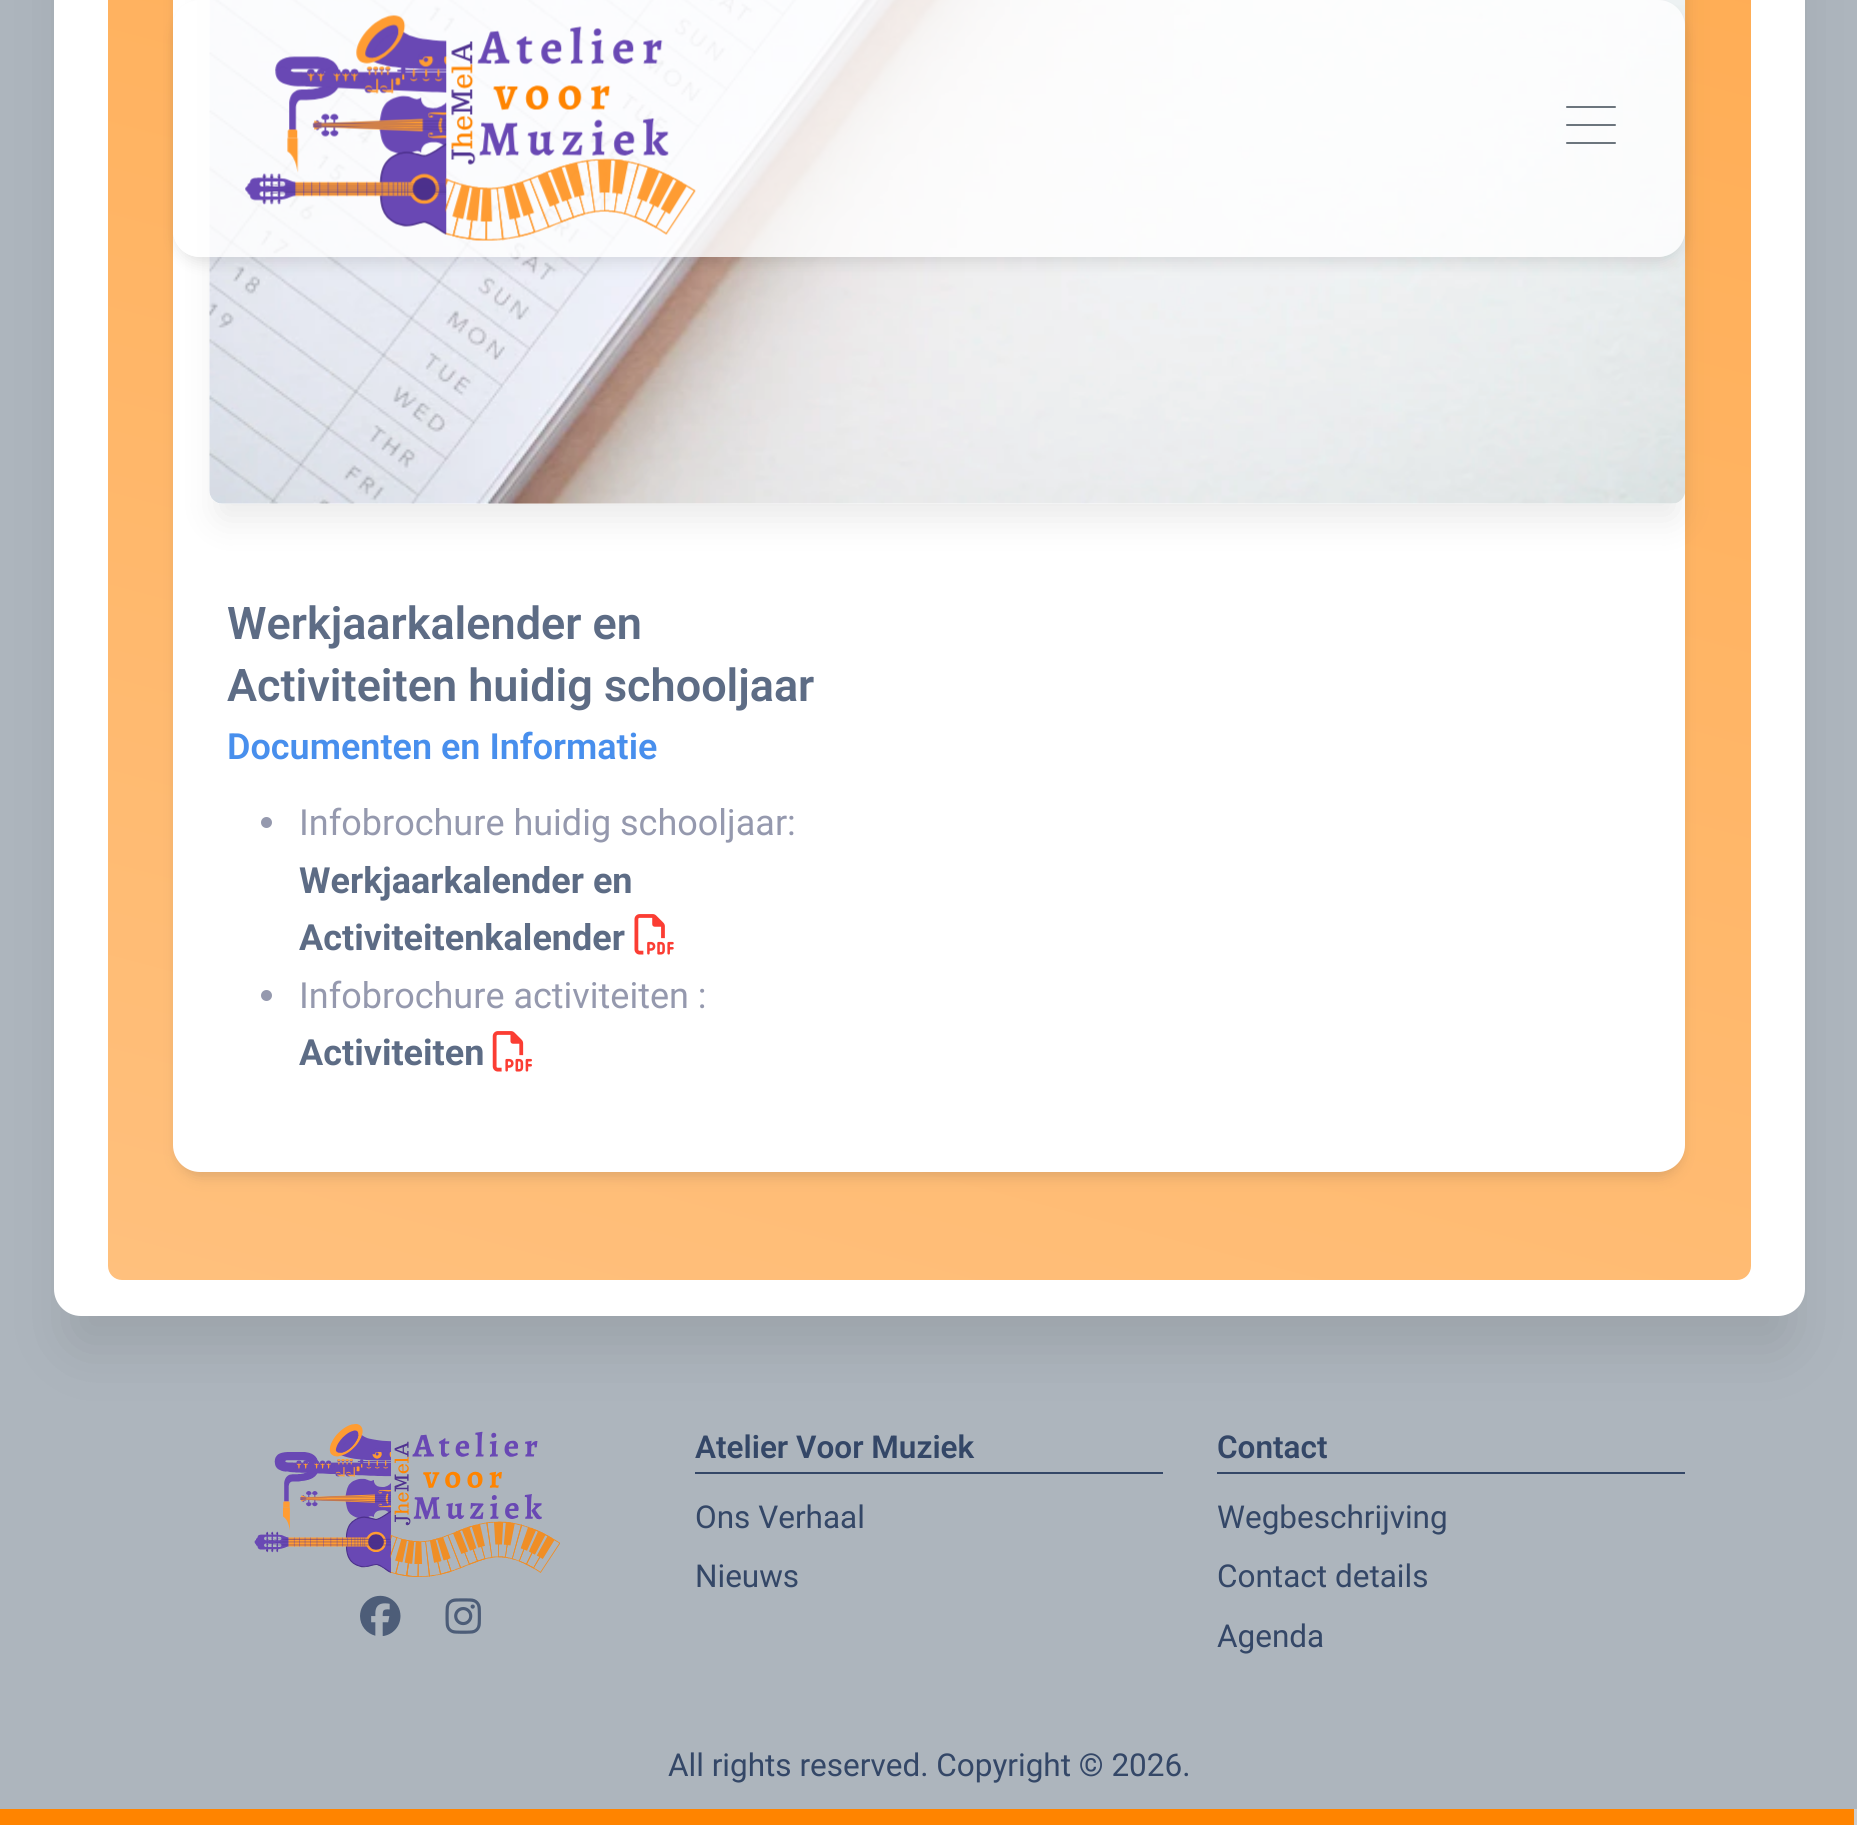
#include <cairo.h>
#include <math.h>
#include <stddef.h>

typedef struct { double x, y; const char *s; } line_t;

static void ink(cairo_t *ctx, unsigned color) {
    cairo_set_source_rgb(ctx, (color >> 16) / 255.0, (color >> 8 & 255) / 255.0, (color & 255) / 255.0);
}

static void round_path(cairo_t *ctx, double x, double y, double w, double h, double r) {
    cairo_new_sub_path(ctx);
    cairo_arc(ctx, x + w - r, y + h - r, r, 0, M_PI / 2);
    cairo_arc(ctx, x + r, y + h - r, r, M_PI / 2, M_PI);
    cairo_arc(ctx, x + r, y + r, r, M_PI, 1.5 * M_PI);
    cairo_arc(ctx, x + w - r, y + r, r, 1.5 * M_PI, 2 * M_PI);
    cairo_close_path(ctx);
}

static void blur_box(cairo_t *ctx, double x, double y, double w, double h, double r, double blur, double alpha) {
    cairo_push_group_with_content(ctx, CAIRO_CONTENT_ALPHA);
    cairo_set_operator(ctx, CAIRO_OPERATOR_SOURCE);
    for (int i = 15; i >= -15 && fmin(w, h) + blur * i / 3 > 0; i -= 2) {
        double e = blur * i / 6;
        cairo_set_source_rgba(ctx, 0, 0, 0, alpha * erfc((i - 1) / 8.5) / 2);
        round_path(ctx, x - e, y - e, w + 2 * e, h + 2 * e, fmax(0, fmin(r + e + blur * .6, fmin(w, h) / 2 + e)));
        cairo_fill(ctx);
    }
    cairo_pattern_t *soft = cairo_pop_group(ctx);
    cairo_mask(ctx, soft);
    cairo_pattern_destroy(soft);
}

static void paste(cairo_t *ctx, const char *path, double x, double y, double w, double h) {
    cairo_surface_t *image = cairo_image_surface_create_from_png(path);
    cairo_save(ctx);
    cairo_set_source_surface(ctx, image, x, y);
    cairo_rectangle(ctx, x, y, w, h);
    cairo_fill(ctx);
    cairo_restore(ctx);
    cairo_surface_destroy(image);
}

int main(void) {
    cairo_surface_t *surface = cairo_image_surface_create(CAIRO_FORMAT_RGB24, 1857, 1825);
    cairo_t *ctx = cairo_create(surface);
    cairo_font_options_t *options = cairo_font_options_create();
    cairo_font_options_set_hint_metrics(options, CAIRO_HINT_METRICS_OFF);
    cairo_font_options_set_hint_style(options, CAIRO_HINT_STYLE_NONE);
    cairo_set_font_options(ctx, options);
    cairo_set_miter_limit(ctx, 4);
    cairo_pattern_t *gradient;
    ink(ctx, 0xADB5BD);
    cairo_paint(ctx);
    paste(ctx, "media/5.png", 254, 1424, 306, 153);
    ink(ctx, 0x000000);
    blur_box(ctx, 65, -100, 1728, 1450, 16, 28, 0.1);
    ink(ctx, 0xFFFFFF);
    round_path(ctx, 54, -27, 1751, 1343, 27);
    cairo_fill(ctx);
    gradient = cairo_pattern_create_linear(1334, -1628, 525, 1392);
    cairo_pattern_add_color_stop_rgba(gradient, 0, 1, 0.616, 0.2, 1);
    cairo_pattern_add_color_stop_rgba(gradient, 1, 1, 0.753, 0.49, 1);
    cairo_set_source(ctx, gradient);
    cairo_pattern_destroy(gradient);
    round_path(ctx, 108, -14, 1643, 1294, 14);
    cairo_fill(ctx);
    ink(ctx, 0x333333);
    blur_box(ctx, 176, -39, 1507, 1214, 25, 4.5, 0.06);
    blur_box(ctx, 176, -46, 1507, 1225, 25, 7, 0.1);
    ink(ctx, 0xFFFFFF);
    round_path(ctx, 173, -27, 1512, 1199, 27);
    cairo_fill(ctx);
    cairo_save(ctx);
    cairo_set_fill_rule(ctx, CAIRO_FILL_RULE_EVEN_ODD);
    cairo_new_path(ctx);
    cairo_move_to(ctx, 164, 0);
    cairo_line_to(ctx, 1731, 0);
    cairo_line_to(ctx, 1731, 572);
    cairo_line_to(ctx, 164, 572);
    cairo_close_path(ctx);
    cairo_move_to(ctx, 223, -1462);
    cairo_line_to(ctx, 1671, -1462);
    cairo_curve_to(ctx, 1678.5, -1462, 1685, -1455.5, 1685, -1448);
    cairo_line_to(ctx, 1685, 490);
    cairo_curve_to(ctx, 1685, 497.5, 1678.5, 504, 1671, 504);
    cairo_line_to(ctx, 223, 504);
    cairo_curve_to(ctx, 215.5, 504, 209, 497.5, 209, 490);
    cairo_line_to(ctx, 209, -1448);
    cairo_curve_to(ctx, 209, -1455.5, 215.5, -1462, 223, -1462);
    cairo_close_path(ctx);
    cairo_clip(ctx);
    ink(ctx, 0x333333);
    blur_box(ctx, 216, -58, 1463, 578, 7, 17, 0.1);
    cairo_restore(ctx);
    paste(ctx, "media/2.png", 209, 0, 1477, 504);
    cairo_save(ctx);
    cairo_set_fill_rule(ctx, CAIRO_FILL_RULE_EVEN_ODD);
    cairo_new_path(ctx);
    cairo_move_to(ctx, 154, 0);
    cairo_line_to(ctx, 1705, 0);
    cairo_line_to(ctx, 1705, 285);
    cairo_line_to(ctx, 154, 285);
    cairo_close_path(ctx);
    cairo_move_to(ctx, 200, 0);
    cairo_line_to(ctx, 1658, 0);
    cairo_curve_to(ctx, 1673, 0, 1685, 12, 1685, 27);
    cairo_line_to(ctx, 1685, 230);
    cairo_curve_to(ctx, 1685, 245, 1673, 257, 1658, 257);
    cairo_line_to(ctx, 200, 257);
    cairo_curve_to(ctx, 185, 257, 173, 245, 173, 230);
    cairo_line_to(ctx, 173, 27);
    cairo_curve_to(ctx, 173, 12, 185, 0, 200, 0);
    cairo_close_path(ctx);
    cairo_clip(ctx);
    ink(ctx, 0x000000);
    blur_box(ctx, 176, 11, 1507, 252, 25, 7, 0.1);
    cairo_restore(ctx);
    cairo_set_source_rgba(ctx, 1, 1, 1, 0.8);
    round_path(ctx, 173, 0, 1512, 257, 27);
    cairo_fill(ctx);
    paste(ctx, "media/1.png", 245, 15, 451, 226);
    ink(ctx, 0x6C757D);
    round_path(ctx, 1566, 106, 50, 2, 1);
    cairo_fill(ctx);
    round_path(ctx, 1566, 124, 50, 2, 1);
    cairo_fill(ctx);
    round_path(ctx, 1566, 142, 50, 2, 1);
    cairo_fill(ctx);
    cairo_select_font_face(ctx, "Roboto SemiBold", CAIRO_FONT_SLANT_NORMAL, CAIRO_FONT_WEIGHT_NORMAL);
    cairo_set_font_size(ctx, 45);
    ink(ctx, 0x5D6C85);
    cairo_move_to(ctx, 227, 639);
    cairo_show_text(ctx, "Werkjaarkalender en");
    cairo_move_to(ctx, 227, 701);
    cairo_show_text(ctx, "Activiteiten huidig schooljaar");
    cairo_set_font_size(ctx, 36);
    ink(ctx, 0x488FED);
    cairo_move_to(ctx, 227, 759);
    cairo_show_text(ctx, "Documenten en Informatie");
    ink(ctx, 0x9599AE);
    cairo_new_path(ctx);
    cairo_arc(ctx, 266.5, 822.5, 5.5, 0, 2 * M_PI);
    cairo_fill(ctx);
    cairo_select_font_face(ctx, "Roboto", CAIRO_FONT_SLANT_NORMAL, CAIRO_FONT_WEIGHT_NORMAL);
    cairo_move_to(ctx, 299, 835);
    cairo_show_text(ctx, "Infobrochure huidig schooljaar:");
    cairo_select_font_face(ctx, "Roboto", CAIRO_FONT_SLANT_NORMAL, CAIRO_FONT_WEIGHT_BOLD);
    ink(ctx, 0x5D6C85);
    cairo_move_to(ctx, 299, 893);
    cairo_show_text(ctx, "Werkjaarkalender en");
    cairo_move_to(ctx, 299, 950);
    cairo_show_text(ctx, "Activiteitenkalender");
    paste(ctx, "media/3.png", 634, 914, 40, 41);
    ink(ctx, 0x9599AE);
    cairo_arc(ctx, 266.5, 995.5, 5.5, 0, 2 * M_PI);
    cairo_fill(ctx);
    cairo_select_font_face(ctx, "Roboto", CAIRO_FONT_SLANT_NORMAL, CAIRO_FONT_WEIGHT_NORMAL);
    cairo_move_to(ctx, 299, 1008);
    cairo_show_text(ctx, "Infobrochure activiteiten :");
    cairo_select_font_face(ctx, "Roboto", CAIRO_FONT_SLANT_NORMAL, CAIRO_FONT_WEIGHT_BOLD);
    ink(ctx, 0x5D6C85);
    cairo_move_to(ctx, 299, 1065);
    cairo_show_text(ctx, "Activiteiten");
    paste(ctx, "media/4.png", 492, 1031, 40, 41);
    paste(ctx, "media/6.png", 360, 1595, 41, 41);
    paste(ctx, "media/7.png", 445, 1598, 36, 36);
    ink(ctx, 0x344767);
    cairo_rectangle(ctx, 695, 1472, 468, 2);
    cairo_fill(ctx);
    cairo_select_font_face(ctx, "Roboto SemiBold", CAIRO_FONT_SLANT_NORMAL, CAIRO_FONT_WEIGHT_NORMAL);
    cairo_set_font_size(ctx, 31.5);
    cairo_move_to(ctx, 695, 1458);
    cairo_show_text(ctx, "Atelier Voor Muziek");
    cairo_select_font_face(ctx, "Roboto", CAIRO_FONT_SLANT_NORMAL, CAIRO_FONT_WEIGHT_NORMAL);
    cairo_move_to(ctx, 695, 1528);
    cairo_show_text(ctx, "Ons Verhaal");
    cairo_move_to(ctx, 695, 1587);
    cairo_show_text(ctx, "Nieuws");
    cairo_rectangle(ctx, 1217, 1472, 468, 2);
    cairo_fill(ctx);
    cairo_select_font_face(ctx, "Roboto SemiBold", CAIRO_FONT_SLANT_NORMAL, CAIRO_FONT_WEIGHT_NORMAL);
    cairo_move_to(ctx, 1217, 1458);
    cairo_show_text(ctx, "Contact");
    cairo_select_font_face(ctx, "Roboto", CAIRO_FONT_SLANT_NORMAL, CAIRO_FONT_WEIGHT_NORMAL);
    {
        static const line_t items[] = {
            {1217, 1528, "Wegbeschrijving"},
            {1217, 1587, "Contact details"},
            {1217, 1647, "Agenda"},
            {668, 1776, "All rights reserved. Copyright © 2026."},
        };
        for (size_t i = 0; i < sizeof items / sizeof *items; i++) {
            cairo_move_to(ctx, items[i].x, items[i].y);
            cairo_show_text(ctx, items[i].s);
        }
    }
    ink(ctx, 0xCCCCCC);
    cairo_rectangle(ctx, 1854, 1809, 3, 16);
    cairo_fill(ctx);
    ink(ctx, 0xFF8400);
    cairo_rectangle(ctx, 0, 1809, 1854, 16);
    cairo_fill(ctx);
    cairo_surface_write_to_png(surface, "image.png");
    cairo_font_options_destroy(options);
    cairo_destroy(ctx);
    cairo_surface_destroy(surface);
    return 0;
}
